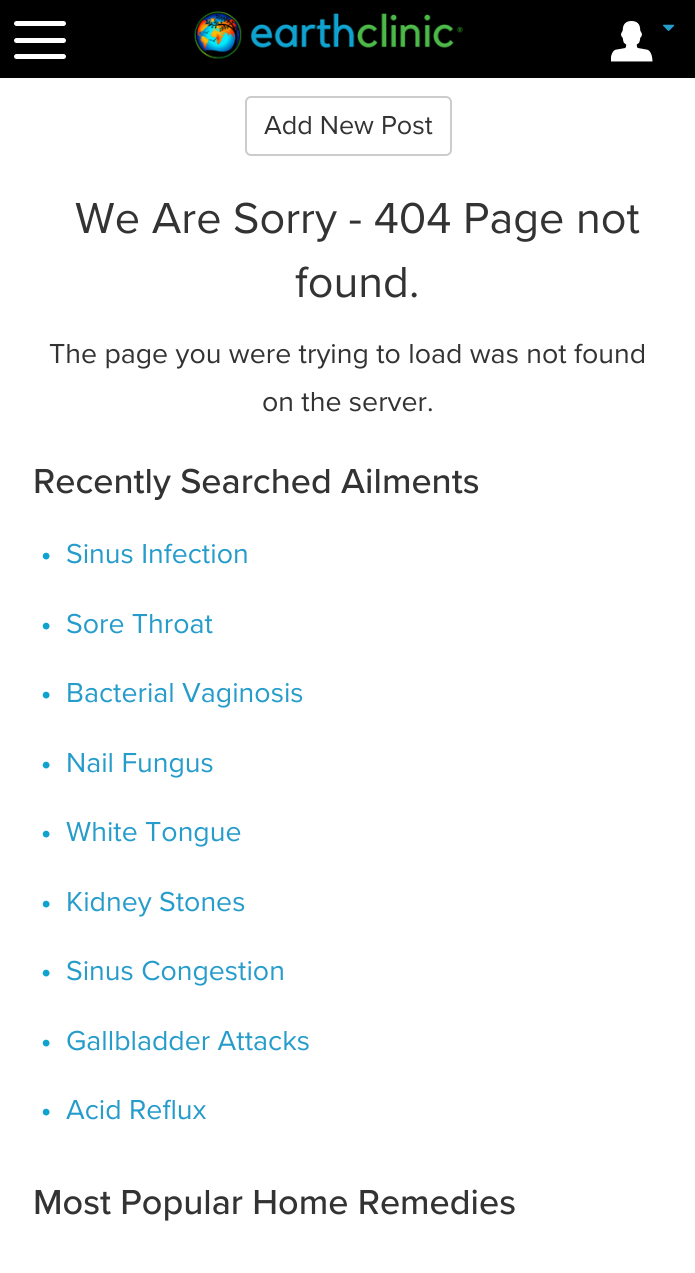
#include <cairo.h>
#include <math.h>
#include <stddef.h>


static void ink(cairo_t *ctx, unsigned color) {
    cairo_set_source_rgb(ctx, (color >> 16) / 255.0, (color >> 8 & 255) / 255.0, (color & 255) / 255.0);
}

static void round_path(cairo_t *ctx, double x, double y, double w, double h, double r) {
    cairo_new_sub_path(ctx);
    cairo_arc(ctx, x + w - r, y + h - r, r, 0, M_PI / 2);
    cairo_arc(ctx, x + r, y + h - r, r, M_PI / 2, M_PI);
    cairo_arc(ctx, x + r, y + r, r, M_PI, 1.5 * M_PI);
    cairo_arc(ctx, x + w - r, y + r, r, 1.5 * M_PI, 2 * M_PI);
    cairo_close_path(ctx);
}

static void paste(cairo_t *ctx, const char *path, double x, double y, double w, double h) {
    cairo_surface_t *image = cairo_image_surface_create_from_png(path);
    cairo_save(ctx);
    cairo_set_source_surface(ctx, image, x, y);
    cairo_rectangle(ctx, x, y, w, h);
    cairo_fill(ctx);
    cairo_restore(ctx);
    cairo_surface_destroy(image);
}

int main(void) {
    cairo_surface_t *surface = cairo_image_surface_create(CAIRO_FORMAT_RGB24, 695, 1273);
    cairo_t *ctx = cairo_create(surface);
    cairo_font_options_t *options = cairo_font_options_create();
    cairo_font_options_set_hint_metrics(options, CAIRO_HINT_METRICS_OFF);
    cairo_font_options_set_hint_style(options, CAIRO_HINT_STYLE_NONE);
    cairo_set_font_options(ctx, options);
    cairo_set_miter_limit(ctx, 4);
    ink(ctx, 0xFFFFFF);
    cairo_paint(ctx);
    ink(ctx, 0x000000);
    cairo_rectangle(ctx, 0, 0, 695, 78);
    cairo_fill(ctx);
    ink(ctx, 0xFFFFFF);
    round_path(ctx, 14, 21, 52, 5, 2.5);
    cairo_fill(ctx);
    round_path(ctx, 14, 38, 52, 5, 2.5);
    cairo_fill(ctx);
    round_path(ctx, 14, 54, 52, 5, 2.5);
    cairo_fill(ctx);
    paste(ctx, "media/1.png", 194, 11, 269, 48);
    paste(ctx, "media/2.png", 611, 21, 42, 41);
    paste(ctx, "media/3.png", 663, 24, 12, 7);
    round_path(ctx, 246, 97, 205, 58, 5);
    ink(ctx, 0xCCCCCC);
    cairo_stroke(ctx);
    cairo_select_font_face(ctx, "Proxima Nova", CAIRO_FONT_SLANT_NORMAL, CAIRO_FONT_WEIGHT_NORMAL);
    cairo_set_font_size(ctx, 27);
    ink(ctx, 0x333333);
    cairo_move_to(ctx, 264, 134);
    cairo_show_text(ctx, "Add New Post");
    cairo_set_font_size(ctx, 45);
    cairo_move_to(ctx, 75, 233);
    cairo_show_text(ctx, "We Are Sorry - 404 Page not");
    cairo_move_to(ctx, 295, 297);
    cairo_show_text(ctx, "found.");
    cairo_set_font_size(ctx, 28.5);
    cairo_move_to(ctx, 49, 363);
    cairo_show_text(ctx, "The page you were trying to load was not found");
    cairo_move_to(ctx, 262, 411);
    cairo_show_text(ctx, "on the server.");
    cairo_select_font_face(ctx, "Proxima Nova Medium", CAIRO_FONT_SLANT_NORMAL, CAIRO_FONT_WEIGHT_NORMAL);
    cairo_set_font_size(ctx, 36);
    cairo_move_to(ctx, 33, 493);
    cairo_show_text(ctx, "Recently Searched Ailments");
    cairo_select_font_face(ctx, "Proxima Nova", CAIRO_FONT_SLANT_NORMAL, CAIRO_FONT_WEIGHT_BOLD);
    cairo_set_font_size(ctx, 28.5);
    ink(ctx, 0x0FA2CF);
    cairo_move_to(ctx, 41, 563);
    cairo_show_text(ctx, "•");
    cairo_select_font_face(ctx, "Proxima Nova", CAIRO_FONT_SLANT_NORMAL, CAIRO_FONT_WEIGHT_NORMAL);
    ink(ctx, 0x269CCB);
    cairo_move_to(ctx, 66, 563);
    cairo_show_text(ctx, "Sinus Infection");
    cairo_select_font_face(ctx, "Proxima Nova", CAIRO_FONT_SLANT_NORMAL, CAIRO_FONT_WEIGHT_BOLD);
    ink(ctx, 0x0FA2CF);
    cairo_move_to(ctx, 41, 633);
    cairo_show_text(ctx, "•");
    cairo_select_font_face(ctx, "Proxima Nova", CAIRO_FONT_SLANT_NORMAL, CAIRO_FONT_WEIGHT_NORMAL);
    ink(ctx, 0x269CCB);
    cairo_move_to(ctx, 66, 633);
    cairo_show_text(ctx, "Sore Throat");
    cairo_select_font_face(ctx, "Proxima Nova", CAIRO_FONT_SLANT_NORMAL, CAIRO_FONT_WEIGHT_BOLD);
    ink(ctx, 0x0FA2CF);
    cairo_move_to(ctx, 41, 702);
    cairo_show_text(ctx, "•");
    cairo_select_font_face(ctx, "Proxima Nova", CAIRO_FONT_SLANT_NORMAL, CAIRO_FONT_WEIGHT_NORMAL);
    ink(ctx, 0x269CCB);
    cairo_move_to(ctx, 66, 702);
    cairo_show_text(ctx, "Bacterial Vaginosis");
    cairo_select_font_face(ctx, "Proxima Nova", CAIRO_FONT_SLANT_NORMAL, CAIRO_FONT_WEIGHT_BOLD);
    ink(ctx, 0x0FA2CF);
    cairo_move_to(ctx, 41, 772);
    cairo_show_text(ctx, "•");
    cairo_select_font_face(ctx, "Proxima Nova", CAIRO_FONT_SLANT_NORMAL, CAIRO_FONT_WEIGHT_NORMAL);
    ink(ctx, 0x269CCB);
    cairo_move_to(ctx, 66, 772);
    cairo_show_text(ctx, "Nail Fungus");
    cairo_select_font_face(ctx, "Proxima Nova", CAIRO_FONT_SLANT_NORMAL, CAIRO_FONT_WEIGHT_BOLD);
    ink(ctx, 0x0FA2CF);
    cairo_move_to(ctx, 41, 841);
    cairo_show_text(ctx, "•");
    cairo_select_font_face(ctx, "Proxima Nova", CAIRO_FONT_SLANT_NORMAL, CAIRO_FONT_WEIGHT_NORMAL);
    ink(ctx, 0x269CCB);
    cairo_move_to(ctx, 66, 841);
    cairo_show_text(ctx, "White Tongue");
    cairo_select_font_face(ctx, "Proxima Nova", CAIRO_FONT_SLANT_NORMAL, CAIRO_FONT_WEIGHT_BOLD);
    ink(ctx, 0x0FA2CF);
    cairo_move_to(ctx, 41, 911);
    cairo_show_text(ctx, "•");
    cairo_select_font_face(ctx, "Proxima Nova", CAIRO_FONT_SLANT_NORMAL, CAIRO_FONT_WEIGHT_NORMAL);
    ink(ctx, 0x269CCB);
    cairo_move_to(ctx, 66, 911);
    cairo_show_text(ctx, "Kidney Stones");
    cairo_select_font_face(ctx, "Proxima Nova", CAIRO_FONT_SLANT_NORMAL, CAIRO_FONT_WEIGHT_BOLD);
    ink(ctx, 0x0FA2CF);
    cairo_move_to(ctx, 41, 980);
    cairo_show_text(ctx, "•");
    cairo_select_font_face(ctx, "Proxima Nova", CAIRO_FONT_SLANT_NORMAL, CAIRO_FONT_WEIGHT_NORMAL);
    ink(ctx, 0x269CCB);
    cairo_move_to(ctx, 66, 980);
    cairo_show_text(ctx, "Sinus Congestion");
    cairo_select_font_face(ctx, "Proxima Nova", CAIRO_FONT_SLANT_NORMAL, CAIRO_FONT_WEIGHT_BOLD);
    ink(ctx, 0x0FA2CF);
    cairo_move_to(ctx, 41, 1050);
    cairo_show_text(ctx, "•");
    cairo_select_font_face(ctx, "Proxima Nova", CAIRO_FONT_SLANT_NORMAL, CAIRO_FONT_WEIGHT_NORMAL);
    ink(ctx, 0x269CCB);
    cairo_move_to(ctx, 66, 1050);
    cairo_show_text(ctx, "Gallbladder Attacks");
    cairo_select_font_face(ctx, "Proxima Nova", CAIRO_FONT_SLANT_NORMAL, CAIRO_FONT_WEIGHT_BOLD);
    ink(ctx, 0x0FA2CF);
    cairo_move_to(ctx, 41, 1119);
    cairo_show_text(ctx, "•");
    cairo_select_font_face(ctx, "Proxima Nova", CAIRO_FONT_SLANT_NORMAL, CAIRO_FONT_WEIGHT_NORMAL);
    ink(ctx, 0x269CCB);
    cairo_move_to(ctx, 66, 1119);
    cairo_show_text(ctx, "Acid Reflux");
    cairo_select_font_face(ctx, "Proxima Nova Medium", CAIRO_FONT_SLANT_NORMAL, CAIRO_FONT_WEIGHT_NORMAL);
    cairo_set_font_size(ctx, 36);
    ink(ctx, 0x333333);
    cairo_move_to(ctx, 33, 1214);
    cairo_show_text(ctx, "Most Popular Home Remedies");
    cairo_surface_write_to_png(surface, "image.png");
    cairo_font_options_destroy(options);
    cairo_destroy(ctx);
    cairo_surface_destroy(surface);
    return 0;
}
